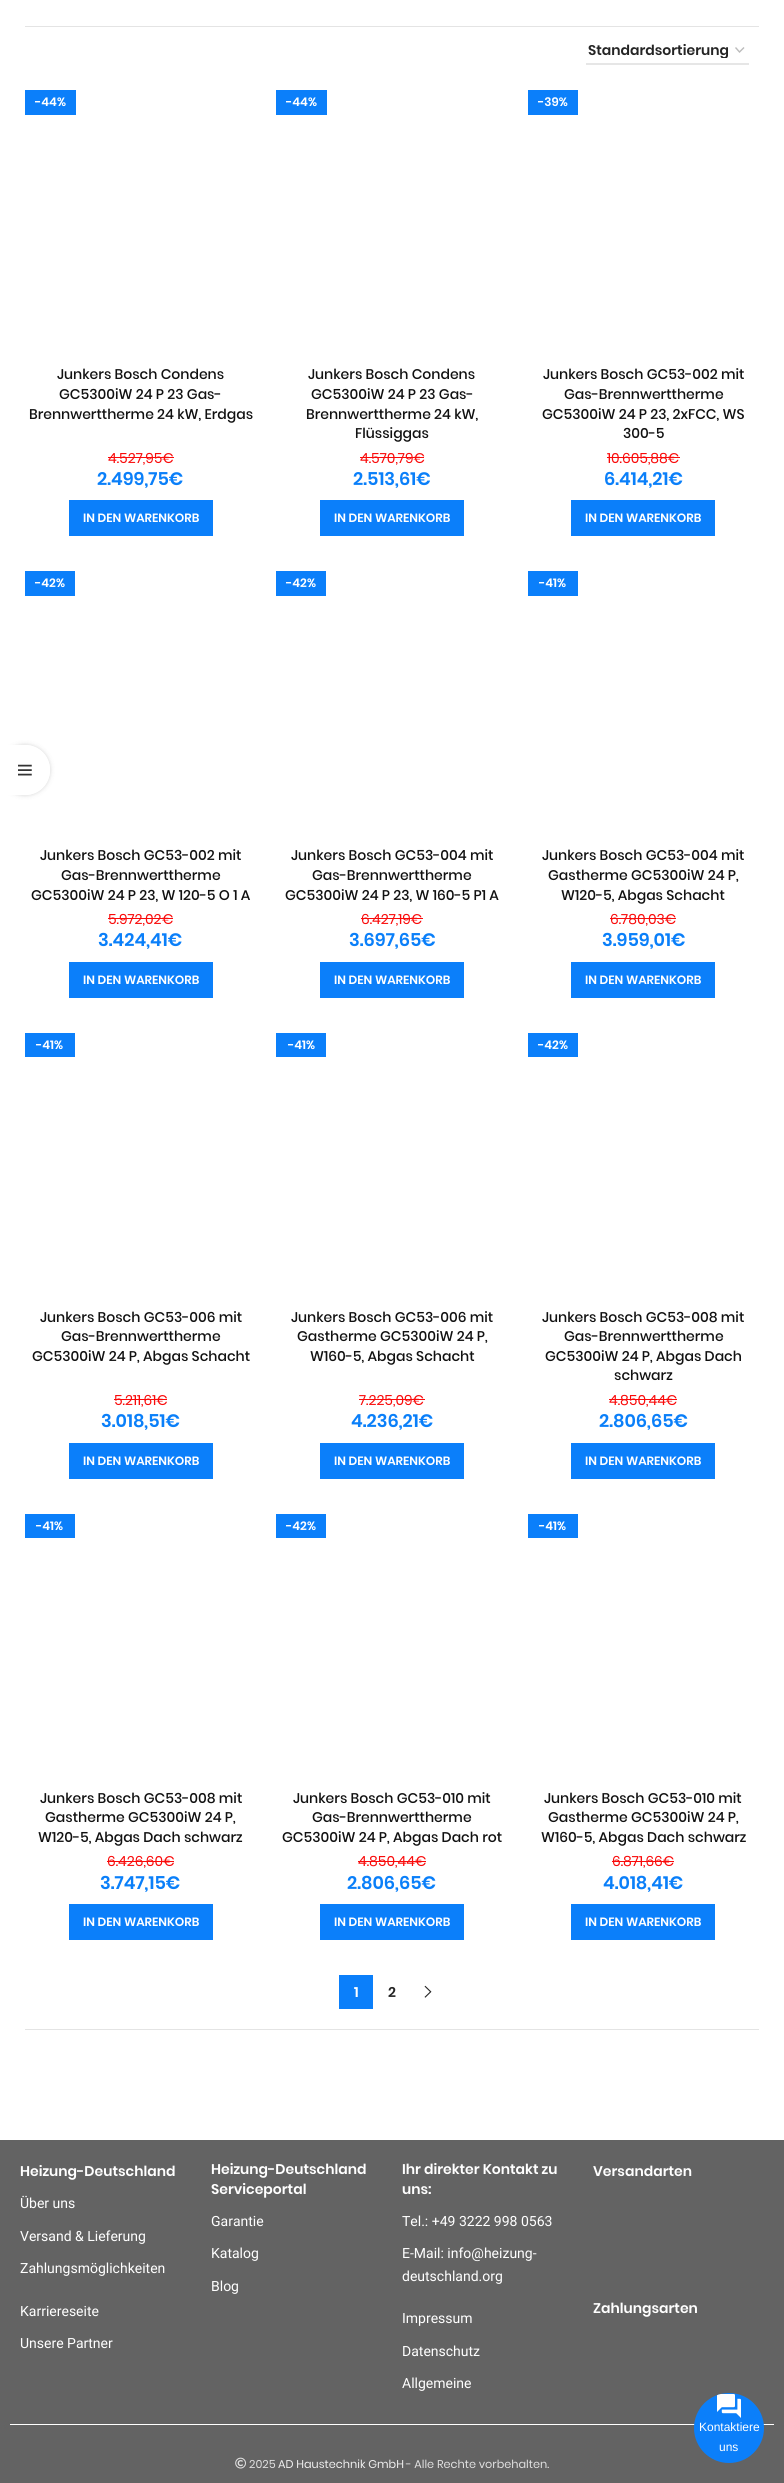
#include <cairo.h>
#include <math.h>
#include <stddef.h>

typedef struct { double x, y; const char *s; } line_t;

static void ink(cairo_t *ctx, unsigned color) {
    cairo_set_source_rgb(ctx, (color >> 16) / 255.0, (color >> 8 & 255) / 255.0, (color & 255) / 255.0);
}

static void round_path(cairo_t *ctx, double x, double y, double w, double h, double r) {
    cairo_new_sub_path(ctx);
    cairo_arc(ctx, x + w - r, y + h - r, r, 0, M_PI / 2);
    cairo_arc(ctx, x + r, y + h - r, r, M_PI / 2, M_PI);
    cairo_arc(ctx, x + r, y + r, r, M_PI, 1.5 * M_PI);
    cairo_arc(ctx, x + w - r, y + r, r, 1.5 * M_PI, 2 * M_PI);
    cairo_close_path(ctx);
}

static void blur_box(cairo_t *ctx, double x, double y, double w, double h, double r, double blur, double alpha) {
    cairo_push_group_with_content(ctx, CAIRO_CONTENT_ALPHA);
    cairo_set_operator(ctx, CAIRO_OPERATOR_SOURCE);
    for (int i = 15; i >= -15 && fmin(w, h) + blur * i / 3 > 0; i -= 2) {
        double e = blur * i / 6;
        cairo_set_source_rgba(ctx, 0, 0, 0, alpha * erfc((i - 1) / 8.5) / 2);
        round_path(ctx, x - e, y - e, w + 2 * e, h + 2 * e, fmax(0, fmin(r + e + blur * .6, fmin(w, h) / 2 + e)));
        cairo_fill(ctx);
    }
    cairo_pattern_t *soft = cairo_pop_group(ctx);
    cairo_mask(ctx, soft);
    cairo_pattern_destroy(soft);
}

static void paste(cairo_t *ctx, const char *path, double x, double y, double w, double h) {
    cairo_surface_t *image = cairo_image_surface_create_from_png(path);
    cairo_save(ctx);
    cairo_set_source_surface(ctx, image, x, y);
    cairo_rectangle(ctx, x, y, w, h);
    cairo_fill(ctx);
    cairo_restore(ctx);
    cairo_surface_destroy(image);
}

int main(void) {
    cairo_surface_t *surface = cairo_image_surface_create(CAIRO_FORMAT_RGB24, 784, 2483);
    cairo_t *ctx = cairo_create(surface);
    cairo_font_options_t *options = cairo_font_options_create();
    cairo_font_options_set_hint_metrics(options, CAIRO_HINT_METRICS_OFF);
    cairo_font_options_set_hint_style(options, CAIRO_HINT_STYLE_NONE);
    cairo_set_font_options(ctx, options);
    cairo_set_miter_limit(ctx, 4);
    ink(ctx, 0xFFFFFF);
    cairo_paint(ctx);
    ink(ctx, 0xE4E4E4);
    cairo_rectangle(ctx, 25, 26, 734, 1);
    cairo_fill(ctx);
    cairo_new_path(ctx);
    cairo_move_to(ctx, 735.5, 47.5);
    cairo_line_to(ctx, 739.5, 52);
    cairo_line_to(ctx, 744, 47.5);
    ink(ctx, 0xBBBBBB);
    cairo_set_line_width(ctx, 1.4);
    cairo_stroke(ctx);
    ink(ctx, 0xE6E6E6);
    cairo_rectangle(ctx, 586, 63, 163, 2);
    cairo_fill(ctx);
    cairo_save(ctx);
    cairo_rectangle(ctx, 588, 42, 141, 16);
    cairo_clip(ctx);
    cairo_select_font_face(ctx, "Poppins SemiBold", CAIRO_FONT_SLANT_NORMAL, CAIRO_FONT_WEIGHT_NORMAL);
    cairo_set_font_size(ctx, 14);
    ink(ctx, 0x242424);
    cairo_move_to(ctx, 588, 55);
    cairo_show_text(ctx, "Standardsortierung");
    cairo_restore(ctx);
    ink(ctx, 0xE4E4E4);
    cairo_rectangle(ctx, 25, 2029, 734, 1);
    cairo_fill(ctx);
    ink(ctx, 0x0B7FFA);
    cairo_rectangle(ctx, 25, 90, 51, 25);
    cairo_fill(ctx);
    cairo_select_font_face(ctx, "Poppins SemiBold", CAIRO_FONT_SLANT_NORMAL, CAIRO_FONT_WEIGHT_NORMAL);
    cairo_set_font_size(ctx, 12);
    ink(ctx, 0xFFFFFF);
    cairo_move_to(ctx, 35, 106);
    cairo_show_text(ctx, "-44%");
    cairo_select_font_face(ctx, "Poppins Medium", CAIRO_FONT_SLANT_NORMAL, CAIRO_FONT_WEIGHT_NORMAL);
    cairo_set_font_size(ctx, 14);
    ink(ctx, 0x111111);
    {
        static const line_t items[] = {
            {57, 379, "Junkers Bosch Condens"},
            {59, 399, "GC5300iW 24 P 23 Gas-"},
            {29, 419, "Brennwerttherme 24 kW, Erdgas"},
        };
        for (size_t i = 0; i < sizeof items / sizeof *items; i++) {
            cairo_move_to(ctx, items[i].x, items[i].y);
            cairo_show_text(ctx, items[i].s);
        }
    }
    cairo_select_font_face(ctx, "Poppins", CAIRO_FONT_SLANT_NORMAL, CAIRO_FONT_WEIGHT_NORMAL);
    ink(ctx, 0xF90A0A);
    cairo_move_to(ctx, 108, 463);
    cairo_show_text(ctx, "4.527,95€");
    cairo_rectangle(ctx, 108, 457, 66, 1);
    cairo_fill(ctx);
    cairo_select_font_face(ctx, "Poppins SemiBold", CAIRO_FONT_SLANT_NORMAL, CAIRO_FONT_WEIGHT_NORMAL);
    cairo_set_font_size(ctx, 18);
    ink(ctx, 0x0A7FF9);
    cairo_move_to(ctx, 97, 485);
    cairo_show_text(ctx, "2.499,75€");
    ink(ctx, 0x0B7FFA);
    cairo_rectangle(ctx, 69, 500, 144, 36);
    cairo_fill(ctx);
    cairo_set_font_size(ctx, 12);
    ink(ctx, 0xFFFFFF);
    cairo_move_to(ctx, 83, 522);
    cairo_show_text(ctx, "IN DEN WARENKORB");
    ink(ctx, 0x0B7FFA);
    cairo_rectangle(ctx, 276, 90, 51, 25);
    cairo_fill(ctx);
    ink(ctx, 0xFFFFFF);
    cairo_move_to(ctx, 286, 106);
    cairo_show_text(ctx, "-44%");
    cairo_select_font_face(ctx, "Poppins Medium", CAIRO_FONT_SLANT_NORMAL, CAIRO_FONT_WEIGHT_NORMAL);
    cairo_set_font_size(ctx, 14);
    ink(ctx, 0x111111);
    {
        static const line_t items[] = {
            {308, 379, "Junkers Bosch Condens"},
            {311, 399, "GC5300iW 24 P 23 Gas-"},
            {306, 419, "Brennwerttherme 24 kW,"},
            {355, 438, "Flüssiggas"},
        };
        for (size_t i = 0; i < sizeof items / sizeof *items; i++) {
            cairo_move_to(ctx, items[i].x, items[i].y);
            cairo_show_text(ctx, items[i].s);
        }
    }
    cairo_select_font_face(ctx, "Poppins", CAIRO_FONT_SLANT_NORMAL, CAIRO_FONT_WEIGHT_NORMAL);
    ink(ctx, 0xF90A0A);
    cairo_move_to(ctx, 360, 463);
    cairo_show_text(ctx, "4.570,79€");
    cairo_rectangle(ctx, 360, 457, 64, 1);
    cairo_fill(ctx);
    cairo_select_font_face(ctx, "Poppins SemiBold", CAIRO_FONT_SLANT_NORMAL, CAIRO_FONT_WEIGHT_NORMAL);
    cairo_set_font_size(ctx, 18);
    ink(ctx, 0x0A7FF9);
    cairo_move_to(ctx, 353, 485);
    cairo_show_text(ctx, "2.513,61€");
    ink(ctx, 0x0B7FFA);
    cairo_rectangle(ctx, 320, 500, 144, 36);
    cairo_fill(ctx);
    cairo_set_font_size(ctx, 12);
    ink(ctx, 0xFFFFFF);
    cairo_move_to(ctx, 334, 522);
    cairo_show_text(ctx, "IN DEN WARENKORB");
    ink(ctx, 0x0B7FFA);
    cairo_rectangle(ctx, 528, 90, 50, 25);
    cairo_fill(ctx);
    ink(ctx, 0xFFFFFF);
    cairo_move_to(ctx, 538, 106);
    cairo_show_text(ctx, "-39%");
    cairo_select_font_face(ctx, "Poppins Medium", CAIRO_FONT_SLANT_NORMAL, CAIRO_FONT_WEIGHT_NORMAL);
    cairo_set_font_size(ctx, 14);
    ink(ctx, 0x111111);
    {
        static const line_t items[] = {
            {543, 379, "Junkers Bosch GC53-002 mit"},
            {564, 399, "Gas-Brennwerttherme"},
            {542, 419, "GC5300iW 24 P 23, 2xFCC, WS"},
            {623, 438, "300-5"},
        };
        for (size_t i = 0; i < sizeof items / sizeof *items; i++) {
            cairo_move_to(ctx, items[i].x, items[i].y);
            cairo_show_text(ctx, items[i].s);
        }
    }
    cairo_select_font_face(ctx, "Poppins", CAIRO_FONT_SLANT_NORMAL, CAIRO_FONT_WEIGHT_NORMAL);
    ink(ctx, 0xF90A0A);
    cairo_move_to(ctx, 607, 463);
    cairo_show_text(ctx, "10.605,88€");
    cairo_rectangle(ctx, 607, 457, 73, 1);
    cairo_fill(ctx);
    cairo_select_font_face(ctx, "Poppins SemiBold", CAIRO_FONT_SLANT_NORMAL, CAIRO_FONT_WEIGHT_NORMAL);
    cairo_set_font_size(ctx, 18);
    ink(ctx, 0x0A7FF9);
    cairo_move_to(ctx, 604, 485);
    cairo_show_text(ctx, "6.414,21€");
    ink(ctx, 0x0B7FFA);
    cairo_rectangle(ctx, 571, 500, 144, 36);
    cairo_fill(ctx);
    cairo_set_font_size(ctx, 12);
    ink(ctx, 0xFFFFFF);
    cairo_move_to(ctx, 585, 522);
    cairo_show_text(ctx, "IN DEN WARENKORB");
    ink(ctx, 0x0B7FFA);
    cairo_rectangle(ctx, 25, 571, 50, 25);
    cairo_fill(ctx);
    ink(ctx, 0xFFFFFF);
    cairo_move_to(ctx, 35, 587);
    cairo_show_text(ctx, "-42%");
    cairo_select_font_face(ctx, "Poppins Medium", CAIRO_FONT_SLANT_NORMAL, CAIRO_FONT_WEIGHT_NORMAL);
    cairo_set_font_size(ctx, 14);
    ink(ctx, 0x111111);
    {
        static const line_t items[] = {
            {40, 860, "Junkers Bosch GC53-002 mit"},
            {61, 880, "Gas-Brennwerttherme"},
            {31, 900, "GC5300iW 24 P 23, W 120-5 O 1 A"},
        };
        for (size_t i = 0; i < sizeof items / sizeof *items; i++) {
            cairo_move_to(ctx, items[i].x, items[i].y);
            cairo_show_text(ctx, items[i].s);
        }
    }
    cairo_select_font_face(ctx, "Poppins", CAIRO_FONT_SLANT_NORMAL, CAIRO_FONT_WEIGHT_NORMAL);
    ink(ctx, 0xF90A0A);
    cairo_move_to(ctx, 108, 924);
    cairo_show_text(ctx, "5.972,02");
    cairo_rectangle(ctx, 108, 918, 54, 1);
    cairo_fill(ctx);
    cairo_rectangle(ctx, 162, 918, 11, 1);
    cairo_fill(ctx);
    cairo_move_to(ctx, 162, 924);
    cairo_show_text(ctx, "€");
    cairo_select_font_face(ctx, "Poppins SemiBold", CAIRO_FONT_SLANT_NORMAL, CAIRO_FONT_WEIGHT_NORMAL);
    cairo_set_font_size(ctx, 18);
    ink(ctx, 0x0A7FF9);
    cairo_move_to(ctx, 98, 946);
    cairo_show_text(ctx, "3.424,41€");
    ink(ctx, 0x0B7FFA);
    cairo_rectangle(ctx, 69, 962, 144, 36);
    cairo_fill(ctx);
    cairo_set_font_size(ctx, 12);
    ink(ctx, 0xFFFFFF);
    cairo_move_to(ctx, 83, 984);
    cairo_show_text(ctx, "IN DEN WARENKORB");
    ink(ctx, 0x0B7FFA);
    cairo_rectangle(ctx, 276, 571, 50, 25);
    cairo_fill(ctx);
    ink(ctx, 0xFFFFFF);
    cairo_move_to(ctx, 286, 587);
    cairo_show_text(ctx, "-42%");
    cairo_select_font_face(ctx, "Poppins Medium", CAIRO_FONT_SLANT_NORMAL, CAIRO_FONT_WEIGHT_NORMAL);
    cairo_set_font_size(ctx, 14);
    ink(ctx, 0x111111);
    {
        static const line_t items[] = {
            {291, 860, "Junkers Bosch GC53-004 mit"},
            {312, 880, "Gas-Brennwerttherme"},
            {285, 900, "GC5300iW 24 P 23, W 160-5 P1 A"},
        };
        for (size_t i = 0; i < sizeof items / sizeof *items; i++) {
            cairo_move_to(ctx, items[i].x, items[i].y);
            cairo_show_text(ctx, items[i].s);
        }
    }
    cairo_select_font_face(ctx, "Poppins", CAIRO_FONT_SLANT_NORMAL, CAIRO_FONT_WEIGHT_NORMAL);
    ink(ctx, 0xF90A0A);
    cairo_move_to(ctx, 361, 924);
    cairo_show_text(ctx, "6.427,19€");
    cairo_rectangle(ctx, 361, 918, 62, 1);
    cairo_fill(ctx);
    cairo_select_font_face(ctx, "Poppins SemiBold", CAIRO_FONT_SLANT_NORMAL, CAIRO_FONT_WEIGHT_NORMAL);
    cairo_set_font_size(ctx, 18);
    ink(ctx, 0x0A7FF9);
    cairo_move_to(ctx, 349, 946);
    cairo_show_text(ctx, "3.697,65€");
    ink(ctx, 0x0B7FFA);
    cairo_rectangle(ctx, 320, 962, 144, 36);
    cairo_fill(ctx);
    cairo_set_font_size(ctx, 12);
    ink(ctx, 0xFFFFFF);
    cairo_move_to(ctx, 334, 984);
    cairo_show_text(ctx, "IN DEN WARENKORB");
    ink(ctx, 0x0B7FFA);
    cairo_rectangle(ctx, 528, 571, 50, 25);
    cairo_fill(ctx);
    ink(ctx, 0xFFFFFF);
    cairo_move_to(ctx, 539, 587);
    cairo_show_text(ctx, "-41%");
    cairo_select_font_face(ctx, "Poppins Medium", CAIRO_FONT_SLANT_NORMAL, CAIRO_FONT_WEIGHT_NORMAL);
    cairo_set_font_size(ctx, 14);
    ink(ctx, 0x111111);
    {
        static const line_t items[] = {
            {542, 860, "Junkers Bosch GC53-004 mit"},
            {548, 880, "Gastherme GC5300iW 24 P,"},
            {561, 900, "W120-5, Abgas Schacht"},
        };
        for (size_t i = 0; i < sizeof items / sizeof *items; i++) {
            cairo_move_to(ctx, items[i].x, items[i].y);
            cairo_show_text(ctx, items[i].s);
        }
    }
    cairo_select_font_face(ctx, "Poppins", CAIRO_FONT_SLANT_NORMAL, CAIRO_FONT_WEIGHT_NORMAL);
    ink(ctx, 0xF90A0A);
    cairo_move_to(ctx, 610, 924);
    cairo_show_text(ctx, "6.780,03€");
    cairo_rectangle(ctx, 610, 918, 66, 1);
    cairo_fill(ctx);
    cairo_select_font_face(ctx, "Poppins SemiBold", CAIRO_FONT_SLANT_NORMAL, CAIRO_FONT_WEIGHT_NORMAL);
    cairo_set_font_size(ctx, 18);
    ink(ctx, 0x0A7FF9);
    cairo_move_to(ctx, 602, 946);
    cairo_show_text(ctx, "3.959,01€");
    ink(ctx, 0x0B7FFA);
    cairo_rectangle(ctx, 571, 962, 144, 36);
    cairo_fill(ctx);
    cairo_set_font_size(ctx, 12);
    ink(ctx, 0xFFFFFF);
    cairo_move_to(ctx, 585, 984);
    cairo_show_text(ctx, "IN DEN WARENKORB");
    ink(ctx, 0x0B7FFA);
    cairo_rectangle(ctx, 25, 1033, 50, 24);
    cairo_fill(ctx);
    ink(ctx, 0xFFFFFF);
    cairo_move_to(ctx, 36, 1049);
    cairo_show_text(ctx, "-41%");
    cairo_select_font_face(ctx, "Poppins Medium", CAIRO_FONT_SLANT_NORMAL, CAIRO_FONT_WEIGHT_NORMAL);
    cairo_set_font_size(ctx, 14);
    ink(ctx, 0x111111);
    {
        static const line_t items[] = {
            {40, 1322, "Junkers Bosch GC53-006 mit"},
            {61, 1341, "Gas-Brennwerttherme"},
            {32, 1361, "GC5300iW 24 P, Abgas Schacht"},
        };
        for (size_t i = 0; i < sizeof items / sizeof *items; i++) {
            cairo_move_to(ctx, items[i].x, items[i].y);
            cairo_show_text(ctx, items[i].s);
        }
    }
    cairo_select_font_face(ctx, "Poppins", CAIRO_FONT_SLANT_NORMAL, CAIRO_FONT_WEIGHT_NORMAL);
    ink(ctx, 0xF90A0A);
    cairo_move_to(ctx, 114, 1405);
    cairo_show_text(ctx, "5.211,61€");
    cairo_rectangle(ctx, 114, 1399, 53, 1);
    cairo_fill(ctx);
    cairo_select_font_face(ctx, "Poppins SemiBold", CAIRO_FONT_SLANT_NORMAL, CAIRO_FONT_WEIGHT_NORMAL);
    cairo_set_font_size(ctx, 18);
    ink(ctx, 0x0A7FF9);
    cairo_move_to(ctx, 101, 1427);
    cairo_show_text(ctx, "3.018,51€");
    ink(ctx, 0x0B7FFA);
    cairo_rectangle(ctx, 69, 1443, 144, 36);
    cairo_fill(ctx);
    cairo_set_font_size(ctx, 12);
    ink(ctx, 0xFFFFFF);
    cairo_move_to(ctx, 83, 1465);
    cairo_show_text(ctx, "IN DEN WARENKORB");
    ink(ctx, 0x0B7FFA);
    cairo_rectangle(ctx, 276, 1033, 50, 24);
    cairo_fill(ctx);
    ink(ctx, 0xFFFFFF);
    cairo_move_to(ctx, 288, 1049);
    cairo_show_text(ctx, "-41%");
    cairo_select_font_face(ctx, "Poppins Medium", CAIRO_FONT_SLANT_NORMAL, CAIRO_FONT_WEIGHT_NORMAL);
    cairo_set_font_size(ctx, 14);
    ink(ctx, 0x111111);
    {
        static const line_t items[] = {
            {291, 1322, "Junkers Bosch GC53-006 mit"},
            {297, 1341, "Gastherme GC5300iW 24 P,"},
            {310, 1361, "W160-5, Abgas Schacht"},
        };
        for (size_t i = 0; i < sizeof items / sizeof *items; i++) {
            cairo_move_to(ctx, items[i].x, items[i].y);
            cairo_show_text(ctx, items[i].s);
        }
    }
    cairo_select_font_face(ctx, "Poppins", CAIRO_FONT_SLANT_NORMAL, CAIRO_FONT_WEIGHT_NORMAL);
    ink(ctx, 0xF90A0A);
    cairo_move_to(ctx, 359, 1405);
    cairo_show_text(ctx, "7.225,09€");
    cairo_rectangle(ctx, 359, 1399, 66, 1);
    cairo_fill(ctx);
    cairo_select_font_face(ctx, "Poppins SemiBold", CAIRO_FONT_SLANT_NORMAL, CAIRO_FONT_WEIGHT_NORMAL);
    cairo_set_font_size(ctx, 18);
    ink(ctx, 0x0A7FF9);
    cairo_move_to(ctx, 351, 1427);
    cairo_show_text(ctx, "4.236,21€");
    ink(ctx, 0x0B7FFA);
    cairo_rectangle(ctx, 320, 1443, 144, 36);
    cairo_fill(ctx);
    cairo_set_font_size(ctx, 12);
    ink(ctx, 0xFFFFFF);
    cairo_move_to(ctx, 334, 1465);
    cairo_show_text(ctx, "IN DEN WARENKORB");
    ink(ctx, 0x0B7FFA);
    cairo_rectangle(ctx, 528, 1033, 50, 24);
    cairo_fill(ctx);
    ink(ctx, 0xFFFFFF);
    cairo_move_to(ctx, 538, 1049);
    cairo_show_text(ctx, "-42%");
    cairo_select_font_face(ctx, "Poppins Medium", CAIRO_FONT_SLANT_NORMAL, CAIRO_FONT_WEIGHT_NORMAL);
    cairo_set_font_size(ctx, 14);
    ink(ctx, 0x111111);
    {
        static const line_t items[] = {
            {542, 1322, "Junkers Bosch GC53-008 mit"},
            {564, 1341, "Gas-Brennwerttherme"},
            {545, 1361, "GC5300iW 24 P, Abgas Dach"},
            {614, 1380, "schwarz"},
        };
        for (size_t i = 0; i < sizeof items / sizeof *items; i++) {
            cairo_move_to(ctx, items[i].x, items[i].y);
            cairo_show_text(ctx, items[i].s);
        }
    }
    cairo_select_font_face(ctx, "Poppins", CAIRO_FONT_SLANT_NORMAL, CAIRO_FONT_WEIGHT_NORMAL);
    ink(ctx, 0xF90A0A);
    cairo_move_to(ctx, 609, 1405);
    cairo_show_text(ctx, "4.850,44€");
    cairo_rectangle(ctx, 609, 1399, 68, 1);
    cairo_fill(ctx);
    cairo_select_font_face(ctx, "Poppins SemiBold", CAIRO_FONT_SLANT_NORMAL, CAIRO_FONT_WEIGHT_NORMAL);
    cairo_set_font_size(ctx, 18);
    ink(ctx, 0x0A7FF9);
    cairo_move_to(ctx, 599, 1427);
    cairo_show_text(ctx, "2.806,65€");
    ink(ctx, 0x0B7FFA);
    cairo_rectangle(ctx, 571, 1443, 144, 36);
    cairo_fill(ctx);
    cairo_set_font_size(ctx, 12);
    ink(ctx, 0xFFFFFF);
    cairo_move_to(ctx, 585, 1465);
    cairo_show_text(ctx, "IN DEN WARENKORB");
    ink(ctx, 0x0B7FFA);
    cairo_rectangle(ctx, 25, 1514, 50, 24);
    cairo_fill(ctx);
    ink(ctx, 0xFFFFFF);
    cairo_move_to(ctx, 36, 1530);
    cairo_show_text(ctx, "-41%");
    cairo_select_font_face(ctx, "Poppins Medium", CAIRO_FONT_SLANT_NORMAL, CAIRO_FONT_WEIGHT_NORMAL);
    cairo_set_font_size(ctx, 14);
    ink(ctx, 0x111111);
    {
        static const line_t items[] = {
            {40, 1803, "Junkers Bosch GC53-008 mit"},
            {45, 1822, "Gastherme GC5300iW 24 P,"},
            {38, 1842, "W120-5, Abgas Dach schwarz"},
        };
        for (size_t i = 0; i < sizeof items / sizeof *items; i++) {
            cairo_move_to(ctx, items[i].x, items[i].y);
            cairo_show_text(ctx, items[i].s);
        }
    }
    cairo_select_font_face(ctx, "Poppins", CAIRO_FONT_SLANT_NORMAL, CAIRO_FONT_WEIGHT_NORMAL);
    ink(ctx, 0xF90A0A);
    cairo_move_to(ctx, 107, 1866);
    cairo_show_text(ctx, "6.426,60€");
    cairo_rectangle(ctx, 107, 1861, 67, 1);
    cairo_fill(ctx);
    cairo_select_font_face(ctx, "Poppins SemiBold", CAIRO_FONT_SLANT_NORMAL, CAIRO_FONT_WEIGHT_NORMAL);
    cairo_set_font_size(ctx, 18);
    ink(ctx, 0x0A7FF9);
    cairo_move_to(ctx, 100, 1889);
    cairo_show_text(ctx, "3.747,15€");
    ink(ctx, 0x0B7FFA);
    cairo_rectangle(ctx, 69, 1904, 144, 36);
    cairo_fill(ctx);
    cairo_set_font_size(ctx, 12);
    ink(ctx, 0xFFFFFF);
    cairo_move_to(ctx, 83, 1926);
    cairo_show_text(ctx, "IN DEN WARENKORB");
    ink(ctx, 0x0B7FFA);
    cairo_rectangle(ctx, 276, 1514, 50, 24);
    cairo_fill(ctx);
    ink(ctx, 0xFFFFFF);
    cairo_move_to(ctx, 286, 1530);
    cairo_show_text(ctx, "-42%");
    cairo_select_font_face(ctx, "Poppins Medium", CAIRO_FONT_SLANT_NORMAL, CAIRO_FONT_WEIGHT_NORMAL);
    cairo_set_font_size(ctx, 14);
    ink(ctx, 0x111111);
    {
        static const line_t items[] = {
            {293, 1803, "Junkers Bosch GC53-010 mit"},
            {312, 1822, "Gas-Brennwerttherme"},
            {282, 1842, "GC5300iW 24 P, Abgas Dach rot"},
        };
        for (size_t i = 0; i < sizeof items / sizeof *items; i++) {
            cairo_move_to(ctx, items[i].x, items[i].y);
            cairo_show_text(ctx, items[i].s);
        }
    }
    cairo_select_font_face(ctx, "Poppins", CAIRO_FONT_SLANT_NORMAL, CAIRO_FONT_WEIGHT_NORMAL);
    ink(ctx, 0xF90A0A);
    cairo_move_to(ctx, 358, 1866);
    cairo_show_text(ctx, "4.850,44");
    cairo_rectangle(ctx, 358, 1861, 57, 1);
    cairo_fill(ctx);
    cairo_rectangle(ctx, 415, 1861, 11, 1);
    cairo_fill(ctx);
    cairo_move_to(ctx, 415, 1866);
    cairo_show_text(ctx, "€");
    cairo_select_font_face(ctx, "Poppins SemiBold", CAIRO_FONT_SLANT_NORMAL, CAIRO_FONT_WEIGHT_NORMAL);
    cairo_set_font_size(ctx, 18);
    ink(ctx, 0x0A7FF9);
    cairo_move_to(ctx, 347, 1889);
    cairo_show_text(ctx, "2.806,65€");
    ink(ctx, 0x0B7FFA);
    cairo_rectangle(ctx, 320, 1904, 144, 36);
    cairo_fill(ctx);
    cairo_set_font_size(ctx, 12);
    ink(ctx, 0xFFFFFF);
    cairo_move_to(ctx, 334, 1926);
    cairo_show_text(ctx, "IN DEN WARENKORB");
    ink(ctx, 0x0B7FFA);
    cairo_rectangle(ctx, 528, 1514, 50, 24);
    cairo_fill(ctx);
    ink(ctx, 0xFFFFFF);
    cairo_move_to(ctx, 539, 1530);
    cairo_show_text(ctx, "-41%");
    cairo_select_font_face(ctx, "Poppins Medium", CAIRO_FONT_SLANT_NORMAL, CAIRO_FONT_WEIGHT_NORMAL);
    cairo_set_font_size(ctx, 14);
    ink(ctx, 0x111111);
    {
        static const line_t items[] = {
            {544, 1803, "Junkers Bosch GC53-010 mit"},
            {548, 1822, "Gastherme GC5300iW 24 P,"},
            {541, 1842, "W160-5, Abgas Dach schwarz"},
        };
        for (size_t i = 0; i < sizeof items / sizeof *items; i++) {
            cairo_move_to(ctx, items[i].x, items[i].y);
            cairo_show_text(ctx, items[i].s);
        }
    }
    cairo_select_font_face(ctx, "Poppins", CAIRO_FONT_SLANT_NORMAL, CAIRO_FONT_WEIGHT_NORMAL);
    ink(ctx, 0xF90A0A);
    cairo_move_to(ctx, 612, 1866);
    cairo_show_text(ctx, "6.871,66€");
    cairo_rectangle(ctx, 612, 1861, 62, 1);
    cairo_fill(ctx);
    cairo_select_font_face(ctx, "Poppins SemiBold", CAIRO_FONT_SLANT_NORMAL, CAIRO_FONT_WEIGHT_NORMAL);
    cairo_set_font_size(ctx, 18);
    ink(ctx, 0x0A7FF9);
    cairo_move_to(ctx, 603, 1889);
    cairo_show_text(ctx, "4.018,41€");
    ink(ctx, 0x0B7FFA);
    cairo_rectangle(ctx, 571, 1904, 144, 36);
    cairo_fill(ctx);
    cairo_set_font_size(ctx, 12);
    ink(ctx, 0xFFFFFF);
    cairo_move_to(ctx, 585, 1926);
    cairo_show_text(ctx, "IN DEN WARENKORB");
    ink(ctx, 0x0B7FFA);
    cairo_rectangle(ctx, 339, 1975, 34, 34);
    cairo_fill(ctx);
    cairo_set_font_size(ctx, 14);
    ink(ctx, 0xFFFFFF);
    cairo_move_to(ctx, 354, 1997);
    cairo_show_text(ctx, "1");
    ink(ctx, 0x242424);
    cairo_move_to(ctx, 388, 1997);
    cairo_show_text(ctx, "2");
    paste(ctx, "media/1.png", 424, 1985, 8, 13);
    cairo_save(ctx);
    cairo_set_fill_rule(ctx, CAIRO_FILL_RULE_EVEN_ODD);
    cairo_new_path(ctx);
    cairo_move_to(ctx, 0, 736);
    cairo_line_to(ctx, 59, 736);
    cairo_line_to(ctx, 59, 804);
    cairo_line_to(ctx, 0, 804);
    cairo_close_path(ctx);
    cairo_move_to(ctx, 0, 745);
    cairo_line_to(ctx, 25, 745);
    cairo_curve_to(ctx, 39, 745, 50, 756, 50, 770);
    cairo_curve_to(ctx, 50, 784, 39, 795, 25, 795);
    cairo_line_to(ctx, 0, 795);
    cairo_close_path(ctx);
    cairo_clip(ctx);
    ink(ctx, 0x000000);
    blur_box(ctx, 0, 745, 50, 50, 25, 2.5, 0.17);
    cairo_restore(ctx);
    cairo_set_source_rgba(ctx, 1, 1, 1, 0.9);
    cairo_new_path(ctx);
    cairo_move_to(ctx, 0, 745);
    cairo_line_to(ctx, 25, 745);
    cairo_curve_to(ctx, 39, 745, 50, 756, 50, 770);
    cairo_curve_to(ctx, 50, 784, 39, 795, 25, 795);
    cairo_line_to(ctx, 0, 795);
    cairo_close_path(ctx);
    cairo_fill(ctx);
    paste(ctx, "media/2.png", 18, 764, 14, 12);
    ink(ctx, 0x636363);
    cairo_rectangle(ctx, 0, 2140, 784, 343);
    cairo_fill(ctx);
    ink(ctx, 0xFFFFFF);
    cairo_rectangle(ctx, 10, 2424, 764, 1);
    cairo_fill(ctx);
    cairo_move_to(ctx, 20, 2176);
    cairo_show_text(ctx, "Heizung-Deutschland");
    cairo_select_font_face(ctx, "Roboto", CAIRO_FONT_SLANT_NORMAL, CAIRO_FONT_WEIGHT_NORMAL);
    {
        static const line_t items[] = {
            {20, 2208, "Über uns"},
            {20, 2241, "Versand & Lieferung"},
            {20, 2273, "Zahlungsmöglichkeiten"},
            {20, 2316, "Karriereseite"},
            {20, 2348, "Unsere Partner"},
        };
        for (size_t i = 0; i < sizeof items / sizeof *items; i++) {
            cairo_move_to(ctx, items[i].x, items[i].y);
            cairo_show_text(ctx, items[i].s);
        }
    }
    cairo_select_font_face(ctx, "Poppins SemiBold", CAIRO_FONT_SLANT_NORMAL, CAIRO_FONT_WEIGHT_NORMAL);
    cairo_move_to(ctx, 211, 2174);
    cairo_show_text(ctx, "Heizung-Deutschland");
    cairo_move_to(ctx, 211, 2194);
    cairo_show_text(ctx, "Serviceportal");
    cairo_select_font_face(ctx, "Roboto", CAIRO_FONT_SLANT_NORMAL, CAIRO_FONT_WEIGHT_NORMAL);
    {
        static const line_t items[] = {
            {211, 2226, "Garantie"},
            {211, 2258, "Katalog"},
            {211, 2291, "Blog"},
        };
        for (size_t i = 0; i < sizeof items / sizeof *items; i++) {
            cairo_move_to(ctx, items[i].x, items[i].y);
            cairo_show_text(ctx, items[i].s);
        }
    }
    cairo_select_font_face(ctx, "Poppins SemiBold", CAIRO_FONT_SLANT_NORMAL, CAIRO_FONT_WEIGHT_NORMAL);
    cairo_move_to(ctx, 402, 2174);
    cairo_show_text(ctx, "Ihr direkter Kontakt zu");
    cairo_move_to(ctx, 402, 2194);
    cairo_show_text(ctx, "uns:");
    cairo_select_font_face(ctx, "Roboto", CAIRO_FONT_SLANT_NORMAL, CAIRO_FONT_WEIGHT_NORMAL);
    {
        static const line_t items[] = {
            {402, 2226, "Tel.: +49 3222 998 0563"},
            {402, 2258, "E-Mail: info@heizung-"},
            {402, 2281, "deutschland.org"},
            {402, 2323, "Impressum"},
            {402, 2356, "Datenschutz"},
            {402, 2388, "Allgemeine"},
        };
        for (size_t i = 0; i < sizeof items / sizeof *items; i++) {
            cairo_move_to(ctx, items[i].x, items[i].y);
            cairo_show_text(ctx, items[i].s);
        }
    }
    cairo_select_font_face(ctx, "Poppins SemiBold", CAIRO_FONT_SLANT_NORMAL, CAIRO_FONT_WEIGHT_NORMAL);
    cairo_move_to(ctx, 593, 2176);
    cairo_show_text(ctx, "Versandarten");
    cairo_move_to(ctx, 593, 2313);
    cairo_show_text(ctx, "Zahlungsarten");
    paste(ctx, "media/3.png", 235, 2457, 11, 12);
    cairo_select_font_face(ctx, "Poppins", CAIRO_FONT_SLANT_NORMAL, CAIRO_FONT_WEIGHT_NORMAL);
    cairo_set_font_size(ctx, 11.25);
    ink(ctx, 0xE0E0E0);
    cairo_move_to(ctx, 249, 2468);
    cairo_show_text(ctx, "2025");
    ink(ctx, 0xEFEFEF);
    cairo_move_to(ctx, 278, 2468);
    cairo_show_text(ctx, "AD Haustechnik GmbH");
    ink(ctx, 0xE0E0E0);
    cairo_move_to(ctx, 406, 2468);
    cairo_show_text(ctx, "- Alle Rechte vorbehalten.");
    ink(ctx, 0x0B7FFA);
    cairo_new_path(ctx);
    cairo_arc(ctx, 729, 2428, 35, 0, 2 * M_PI);
    cairo_fill(ctx);
    paste(ctx, "media/4.png", 717, 2394, 24, 24);
    cairo_select_font_face(ctx, "Liberation Sans", CAIRO_FONT_SLANT_NORMAL, CAIRO_FONT_WEIGHT_NORMAL);
    cairo_set_font_size(ctx, 12);
    ink(ctx, 0xFFFFFF);
    cairo_move_to(ctx, 699, 2431);
    cairo_show_text(ctx, "Kontaktiere");
    cairo_move_to(ctx, 719, 2451);
    cairo_show_text(ctx, "uns");
    cairo_surface_write_to_png(surface, "image.png");
    cairo_font_options_destroy(options);
    cairo_destroy(ctx);
    cairo_surface_destroy(surface);
    return 0;
}
